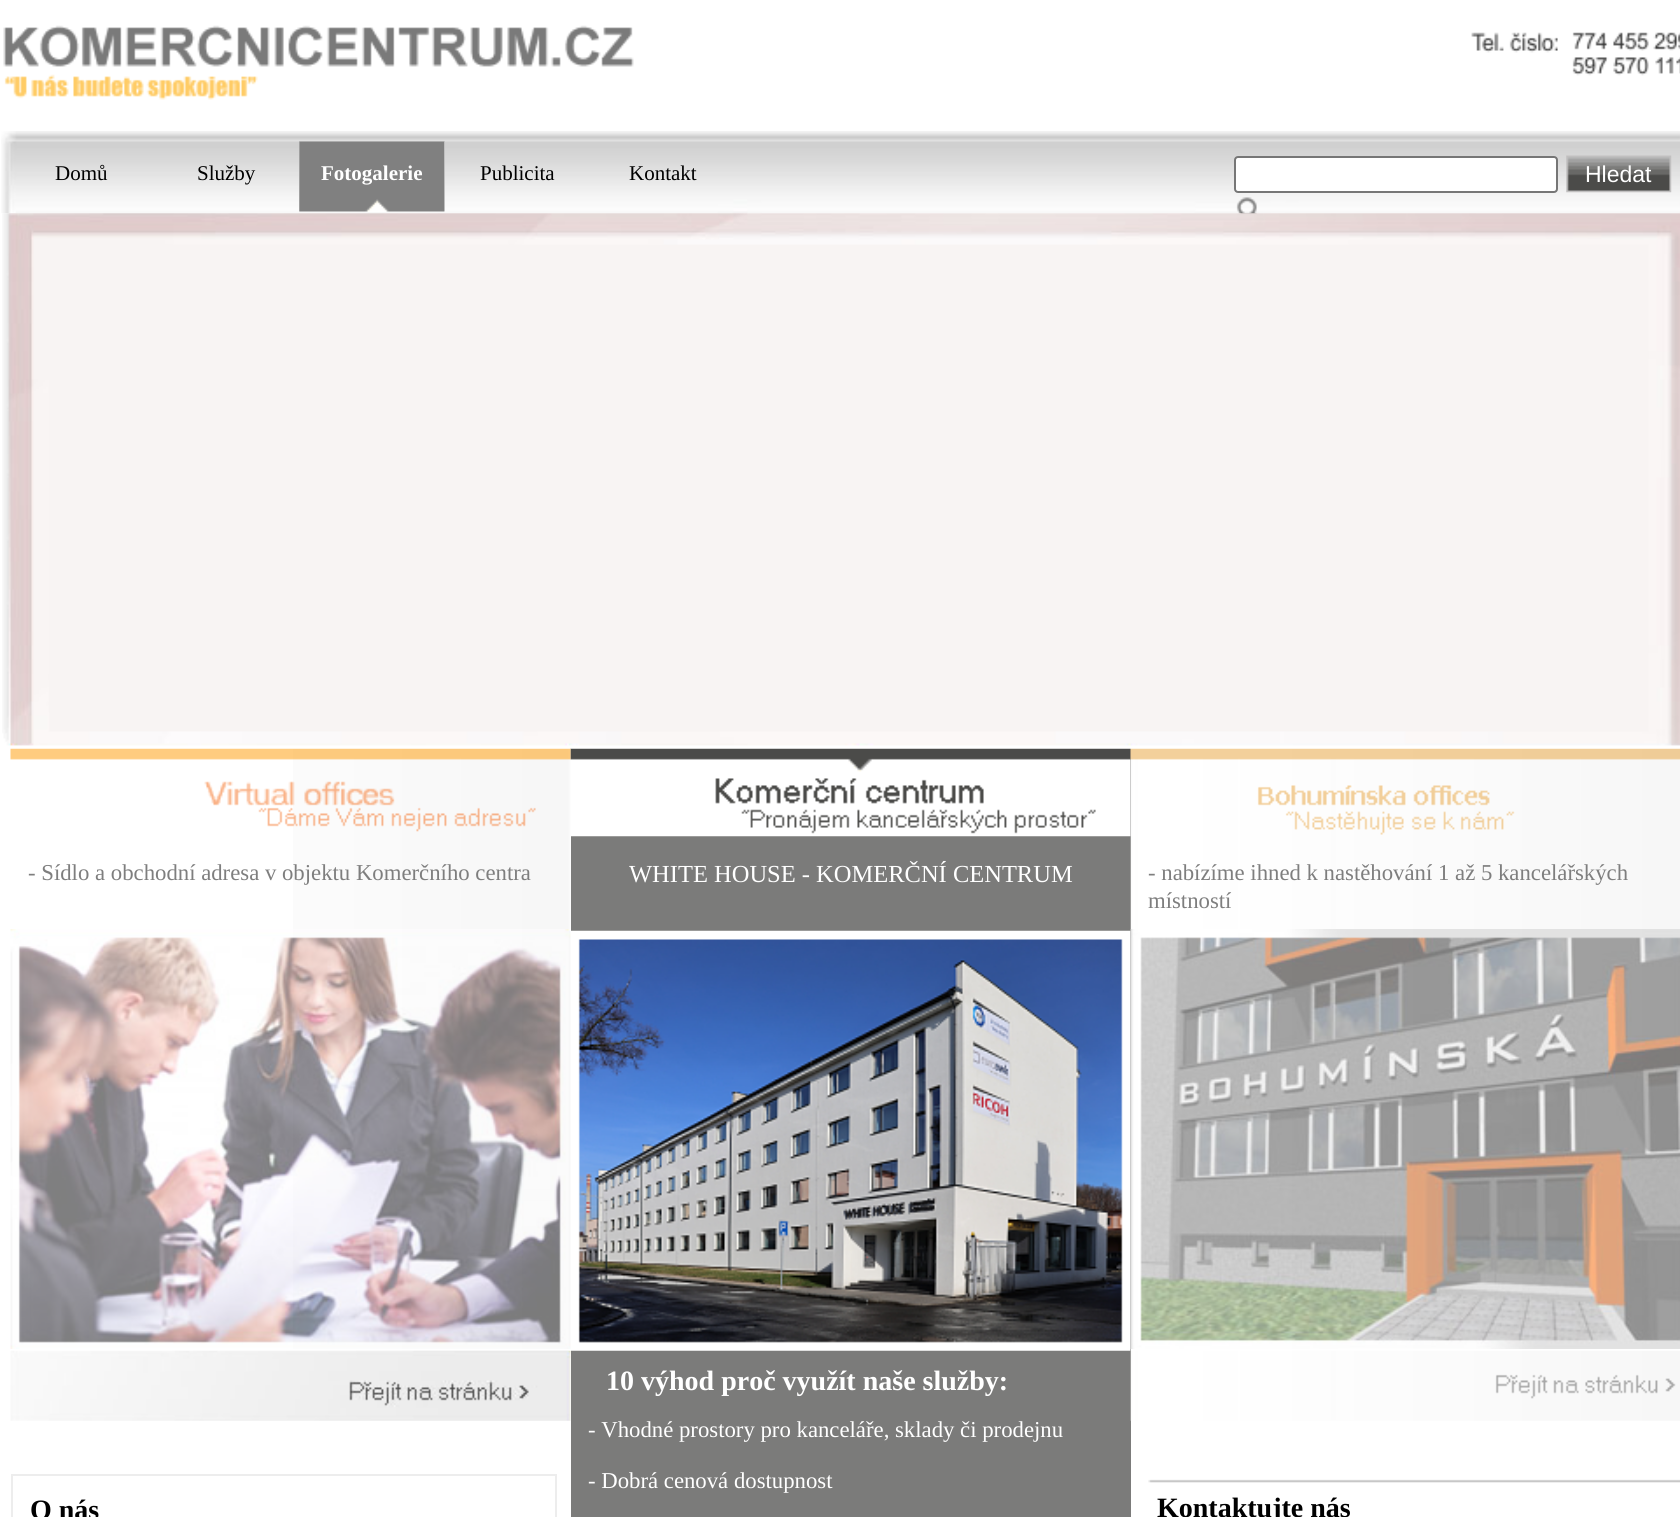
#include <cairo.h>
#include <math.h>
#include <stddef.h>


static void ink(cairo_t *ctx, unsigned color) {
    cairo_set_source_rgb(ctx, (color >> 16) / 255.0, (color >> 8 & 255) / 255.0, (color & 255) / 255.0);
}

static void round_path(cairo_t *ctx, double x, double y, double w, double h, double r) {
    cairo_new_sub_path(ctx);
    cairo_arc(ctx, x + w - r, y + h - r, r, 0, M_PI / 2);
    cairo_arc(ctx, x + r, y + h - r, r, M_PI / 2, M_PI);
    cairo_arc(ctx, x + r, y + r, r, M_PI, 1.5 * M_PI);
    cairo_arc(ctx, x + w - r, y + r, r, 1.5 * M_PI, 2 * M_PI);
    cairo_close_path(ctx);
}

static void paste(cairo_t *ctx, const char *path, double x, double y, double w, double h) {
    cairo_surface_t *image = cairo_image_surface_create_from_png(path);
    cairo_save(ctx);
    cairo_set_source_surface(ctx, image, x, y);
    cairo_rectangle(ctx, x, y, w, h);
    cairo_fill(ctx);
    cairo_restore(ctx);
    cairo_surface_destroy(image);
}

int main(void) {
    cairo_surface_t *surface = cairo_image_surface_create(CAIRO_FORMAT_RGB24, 1680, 1517);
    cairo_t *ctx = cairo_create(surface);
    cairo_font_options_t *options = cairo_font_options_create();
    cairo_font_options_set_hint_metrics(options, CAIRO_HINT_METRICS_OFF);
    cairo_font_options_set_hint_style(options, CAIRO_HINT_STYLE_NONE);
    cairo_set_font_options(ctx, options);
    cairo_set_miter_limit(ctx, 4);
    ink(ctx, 0xFFFFFF);
    cairo_paint(ctx);
    paste(ctx, "media/1.png", 3, 25, 631, 75);
    paste(ctx, "media/2.png", 1471, 32, 209, 44);
    paste(ctx, "media/3.png", 1, 131, 1679, 83);
    cairo_select_font_face(ctx, "Liberation Serif", CAIRO_FONT_SLANT_NORMAL, CAIRO_FONT_WEIGHT_NORMAL);
    cairo_set_font_size(ctx, 21);
    ink(ctx, 0x000000);
    cairo_move_to(ctx, 55, 180);
    cairo_show_text(ctx, "Domů");
    cairo_move_to(ctx, 197, 180);
    cairo_show_text(ctx, "Služby");
    ink(ctx, 0xFFFFFF);
    cairo_rectangle(ctx, 299, 142, 146, 70);
    cairo_fill(ctx);
    paste(ctx, "media/4.png", 299, 141, 146, 71);
    cairo_select_font_face(ctx, "Liberation Serif", CAIRO_FONT_SLANT_NORMAL, CAIRO_FONT_WEIGHT_BOLD);
    cairo_move_to(ctx, 321, 180);
    cairo_show_text(ctx, "Fotogalerie");
    cairo_select_font_face(ctx, "Liberation Serif", CAIRO_FONT_SLANT_NORMAL, CAIRO_FONT_WEIGHT_NORMAL);
    ink(ctx, 0x000000);
    cairo_move_to(ctx, 480, 180);
    cairo_show_text(ctx, "Publicita");
    cairo_move_to(ctx, 629, 180);
    cairo_show_text(ctx, "Kontakt");
    ink(ctx, 0xFFFFFF);
    round_path(ctx, 1235, 157, 322, 35, 3);
    cairo_fill_preserve(ctx);
    ink(ctx, 0x767676);
    cairo_stroke(ctx);
    paste(ctx, "media/5.png", 1566, 155, 106, 38);
    cairo_select_font_face(ctx, "Liberation Sans", CAIRO_FONT_SLANT_NORMAL, CAIRO_FONT_WEIGHT_NORMAL);
    cairo_set_font_size(ctx, 23);
    ink(ctx, 0xFFFFFF);
    cairo_move_to(ctx, 1585, 182);
    cairo_show_text(ctx, "Hledat");
    paste(ctx, "media/6.png", 1236, 197, 21, 17);
    paste(ctx, "media/7.png", 2, 213, 1678, 533);
    ink(ctx, 0x7B7B7A);
    cairo_rectangle(ctx, 571, 749, 560, 768);
    cairo_fill(ctx);
    paste(ctx, "media/11.png", 570, 748, 561, 89);
    paste(ctx, "media/8.png", 293, 749, 278, 600);
    paste(ctx, "media/9.png", 10, 748, 561, 84);
    cairo_select_font_face(ctx, "Liberation Serif", CAIRO_FONT_SLANT_NORMAL, CAIRO_FONT_WEIGHT_NORMAL);
    cairo_set_font_size(ctx, 22.75);
    ink(ctx, 0x7E7E7E);
    cairo_move_to(ctx, 28, 880);
    cairo_show_text(ctx, "- Sídlo a obchodní adresa v objektu Komerčního centra");
    paste(ctx, "media/10.png", 10, 929, 561, 420);
    cairo_set_font_size(ctx, 24.5);
    ink(ctx, 0xFFFFFF);
    cairo_move_to(ctx, 629, 882);
    cairo_show_text(ctx, "WHITE HOUSE - KOMERČNÍ CENTRUM");
    paste(ctx, "media/12.png", 571, 930, 560, 421);
    paste(ctx, "media/13.png", 1130, 749, 550, 600);
    paste(ctx, "media/14.png", 1130, 748, 550, 87);
    cairo_set_font_size(ctx, 22.75);
    ink(ctx, 0x7E7E7E);
    cairo_move_to(ctx, 1148, 880);
    cairo_show_text(ctx, "- nabízíme ihned k nastěhování 1 až 5 kancelářských");
    cairo_move_to(ctx, 1148, 908);
    cairo_show_text(ctx, "místností");
    paste(ctx, "media/15.png", 1130, 929, 550, 420);
    cairo_select_font_face(ctx, "Liberation Serif", CAIRO_FONT_SLANT_NORMAL, CAIRO_FONT_WEIGHT_BOLD);
    cairo_set_font_size(ctx, 28);
    ink(ctx, 0xFFFFFF);
    cairo_move_to(ctx, 606, 1390);
    cairo_show_text(ctx, "10 výhod proč využít naše služby:");
    cairo_select_font_face(ctx, "Liberation Serif", CAIRO_FONT_SLANT_NORMAL, CAIRO_FONT_WEIGHT_NORMAL);
    cairo_set_font_size(ctx, 22.75);
    cairo_move_to(ctx, 588, 1437);
    cairo_show_text(ctx, "- Vhodné prostory pro kanceláře, sklady či prodejnu");
    cairo_move_to(ctx, 588, 1488);
    cairo_show_text(ctx, "- Dobrá cenová dostupnost");
    paste(ctx, "media/16.png", 1130, 1350, 550, 71);
    paste(ctx, "media/17.png", 1495, 1374, 181, 25);
    paste(ctx, "media/18.png", 11, 1350, 560, 3);
    paste(ctx, "media/19.png", 10, 1350, 561, 71);
    cairo_rectangle(ctx, 12, 1475, 544, 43);
    ink(ctx, 0xEDEDED);
    cairo_stroke(ctx);
    cairo_select_font_face(ctx, "Liberation Serif", CAIRO_FONT_SLANT_NORMAL, CAIRO_FONT_WEIGHT_BOLD);
    cairo_set_font_size(ctx, 28);
    ink(ctx, 0x000000);
    cairo_move_to(ctx, 30, 1519);
    cairo_show_text(ctx, "O nás");
    paste(ctx, "media/20.png", 1148, 1474, 532, 43);
    cairo_move_to(ctx, 1157, 1517);
    cairo_show_text(ctx, "Kontaktujte nás");
    cairo_surface_write_to_png(surface, "image.png");
    cairo_font_options_destroy(options);
    cairo_destroy(ctx);
    cairo_surface_destroy(surface);
    return 0;
}
